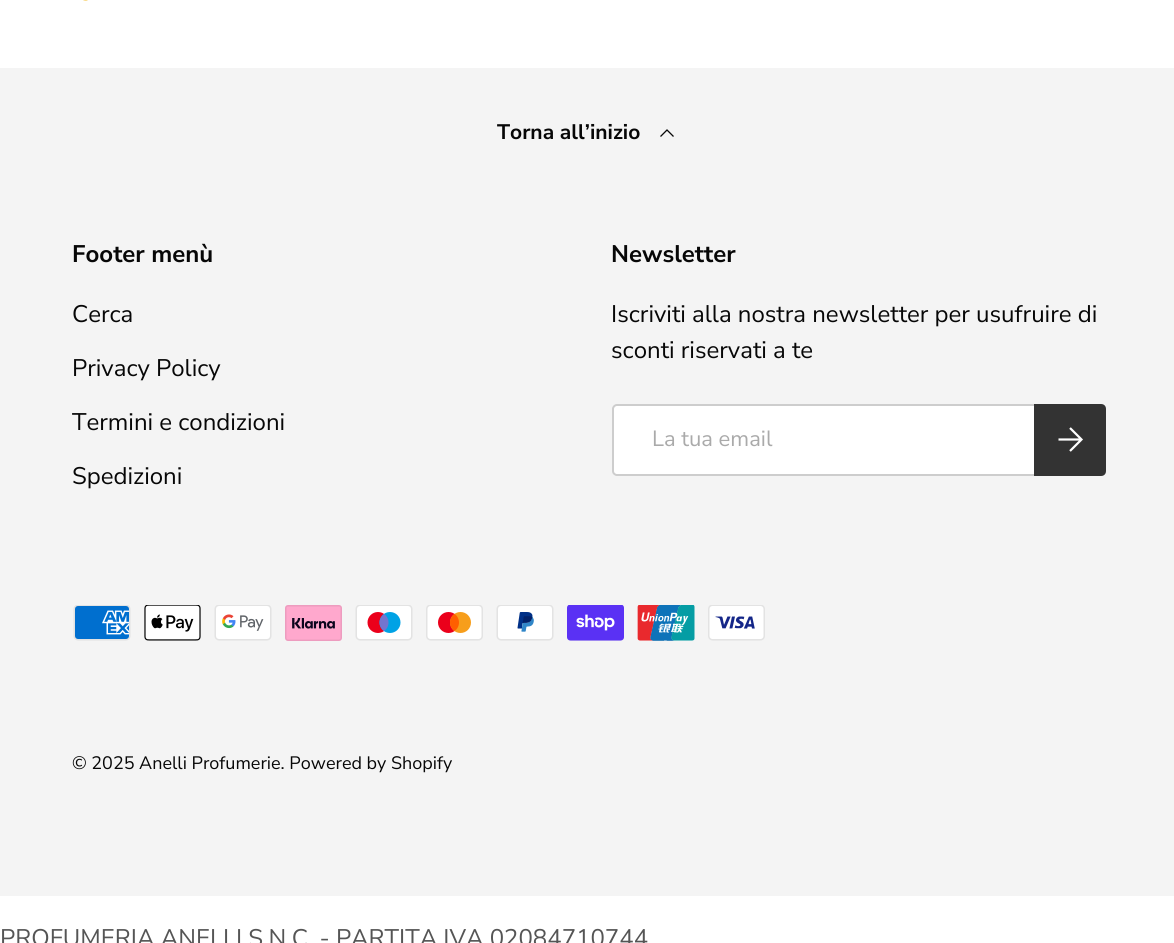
#include <cairo.h>
#include <math.h>
#include <stddef.h>

typedef struct { double x, y; const char *s; } line_t;

static void ink(cairo_t *ctx, unsigned color) {
    cairo_set_source_rgb(ctx, (color >> 16) / 255.0, (color >> 8 & 255) / 255.0, (color & 255) / 255.0);
}

static void round_path(cairo_t *ctx, double x, double y, double w, double h, double r) {
    cairo_new_sub_path(ctx);
    cairo_arc(ctx, x + w - r, y + h - r, r, 0, M_PI / 2);
    cairo_arc(ctx, x + r, y + h - r, r, M_PI / 2, M_PI);
    cairo_arc(ctx, x + r, y + r, r, M_PI, 1.5 * M_PI);
    cairo_arc(ctx, x + w - r, y + r, r, 1.5 * M_PI, 2 * M_PI);
    cairo_close_path(ctx);
}

static void paste(cairo_t *ctx, const char *path, double x, double y, double w, double h) {
    cairo_surface_t *image = cairo_image_surface_create_from_png(path);
    cairo_save(ctx);
    cairo_set_source_surface(ctx, image, x, y);
    cairo_rectangle(ctx, x, y, w, h);
    cairo_fill(ctx);
    cairo_restore(ctx);
    cairo_surface_destroy(image);
}

int main(void) {
    cairo_surface_t *surface = cairo_image_surface_create(CAIRO_FORMAT_RGB24, 1174, 943);
    cairo_t *ctx = cairo_create(surface);
    cairo_font_options_t *options = cairo_font_options_create();
    cairo_font_options_set_hint_metrics(options, CAIRO_HINT_METRICS_OFF);
    cairo_font_options_set_hint_style(options, CAIRO_HINT_STYLE_NONE);
    cairo_set_font_options(ctx, options);
    cairo_set_miter_limit(ctx, 4);
    cairo_pattern_t *gradient;
    ink(ctx, 0xFFFFFF);
    cairo_paint(ctx);
    paste(ctx, "media/1.png", 83, 0, 5, 1);
    ink(ctx, 0xF4F4F4);
    cairo_rectangle(ctx, 0, 68, 1174, 828);
    cairo_fill(ctx);
    cairo_select_font_face(ctx, "Nunito Sans", CAIRO_FONT_SLANT_NORMAL, CAIRO_FONT_WEIGHT_BOLD);
    cairo_set_font_size(ctx, 21);
    ink(ctx, 0x070707);
    cairo_move_to(ctx, 497, 139);
    cairo_show_text(ctx, "Torna all’inizio");
    cairo_new_path(ctx);
    cairo_move_to(ctx, 660.5, 136.5);
    cairo_line_to(ctx, 667, 130);
    cairo_line_to(ctx, 673.5, 136.5);
    cairo_set_line_width(ctx, 1.3);
    cairo_stroke(ctx);
    cairo_set_font_size(ctx, 24);
    cairo_move_to(ctx, 72, 262);
    cairo_show_text(ctx, "Footer menù");
    cairo_select_font_face(ctx, "Nunito Sans", CAIRO_FONT_SLANT_NORMAL, CAIRO_FONT_WEIGHT_NORMAL);
    {
        static const line_t items[] = {
            {72, 322, "Cerca"},
            {72, 376, "Privacy Policy"},
            {72, 430, "Termini e condizioni"},
            {72, 484, "Spedizioni"},
        };
        for (size_t i = 0; i < sizeof items / sizeof *items; i++) {
            cairo_move_to(ctx, items[i].x, items[i].y);
            cairo_show_text(ctx, items[i].s);
        }
    }
    cairo_select_font_face(ctx, "Nunito Sans", CAIRO_FONT_SLANT_NORMAL, CAIRO_FONT_WEIGHT_BOLD);
    cairo_move_to(ctx, 611, 262);
    cairo_show_text(ctx, "Newsletter");
    cairo_select_font_face(ctx, "Nunito Sans", CAIRO_FONT_SLANT_NORMAL, CAIRO_FONT_WEIGHT_NORMAL);
    cairo_move_to(ctx, 611, 322);
    cairo_show_text(ctx, "Iscriviti alla nostra newsletter per usufruire di");
    cairo_move_to(ctx, 611, 358);
    cairo_show_text(ctx, "sconti riservati a te");
    ink(ctx, 0xFFFFFF);
    round_path(ctx, 612, 404, 491, 72, 5);
    cairo_fill(ctx);
    round_path(ctx, 613, 405, 489, 70, 4);
    cairo_set_source_rgba(ctx, 0.027, 0.027, 0.027, 0.2);
    cairo_set_line_width(ctx, 2);
    cairo_stroke(ctx);
    cairo_set_font_size(ctx, 22);
    ink(ctx, 0xAAAAAA);
    cairo_move_to(ctx, 652, 446);
    cairo_show_text(ctx, "La tua email");
    gradient = cairo_pattern_create_linear(887, 412, 1108, 467);
    cairo_pattern_add_color_stop_rgba(gradient, 0.6, 0.353, 0.353, 0.353, 1);
    cairo_pattern_add_color_stop_rgba(gradient, 0.6, 0.2, 0.2, 0.2, 1);
    cairo_pattern_add_color_stop_rgba(gradient, 1, 0.2, 0.2, 0.2, 1);
    cairo_set_source(ctx, gradient);
    cairo_pattern_destroy(gradient);
    cairo_new_path(ctx);
    cairo_move_to(ctx, 1034, 404);
    cairo_line_to(ctx, 1101, 404);
    cairo_curve_to(ctx, 1104, 404, 1106, 406, 1106, 409);
    cairo_line_to(ctx, 1106, 471);
    cairo_curve_to(ctx, 1106, 474, 1104, 476, 1101, 476);
    cairo_line_to(ctx, 1034, 476);
    cairo_close_path(ctx);
    cairo_fill(ctx);
    cairo_new_path(ctx);
    cairo_move_to(ctx, 1058.5, 439.5);
    cairo_line_to(ctx, 1080.5, 439.5);
    cairo_move_to(ctx, 1070, 428);
    cairo_line_to(ctx, 1081.5, 439.5);
    cairo_line_to(ctx, 1070, 451);
    ink(ctx, 0xFFFFFF);
    cairo_set_line_width(ctx, 2.2);
    cairo_stroke(ctx);
    paste(ctx, "media/2.png", 73, 605, 58, 36);
    paste(ctx, "media/3.png", 144, 605, 57, 36);
    paste(ctx, "media/4.png", 214, 605, 58, 36);
    paste(ctx, "media/5.png", 285, 605, 57, 36);
    paste(ctx, "media/6.png", 355, 605, 58, 36);
    paste(ctx, "media/7.png", 426, 605, 57, 36);
    paste(ctx, "media/8.png", 496, 605, 58, 36);
    paste(ctx, "media/9.png", 567, 605, 57, 36);
    paste(ctx, "media/10.png", 637, 605, 58, 36);
    paste(ctx, "media/11.png", 708, 605, 57, 36);
    cairo_set_font_size(ctx, 18);
    ink(ctx, 0x070707);
    cairo_move_to(ctx, 72, 769);
    cairo_show_text(ctx, "© 2025 Anelli Profumerie. Powered by Shopify");
    cairo_set_font_size(ctx, 24);
    ink(ctx, 0x555555);
    cairo_move_to(ctx, 0, 946);
    cairo_show_text(ctx, "PROFUMERIA ANELLI S.N.C. - PARTITA IVA 02084710744");
    cairo_surface_write_to_png(surface, "image.png");
    cairo_font_options_destroy(options);
    cairo_destroy(ctx);
    cairo_surface_destroy(surface);
    return 0;
}
